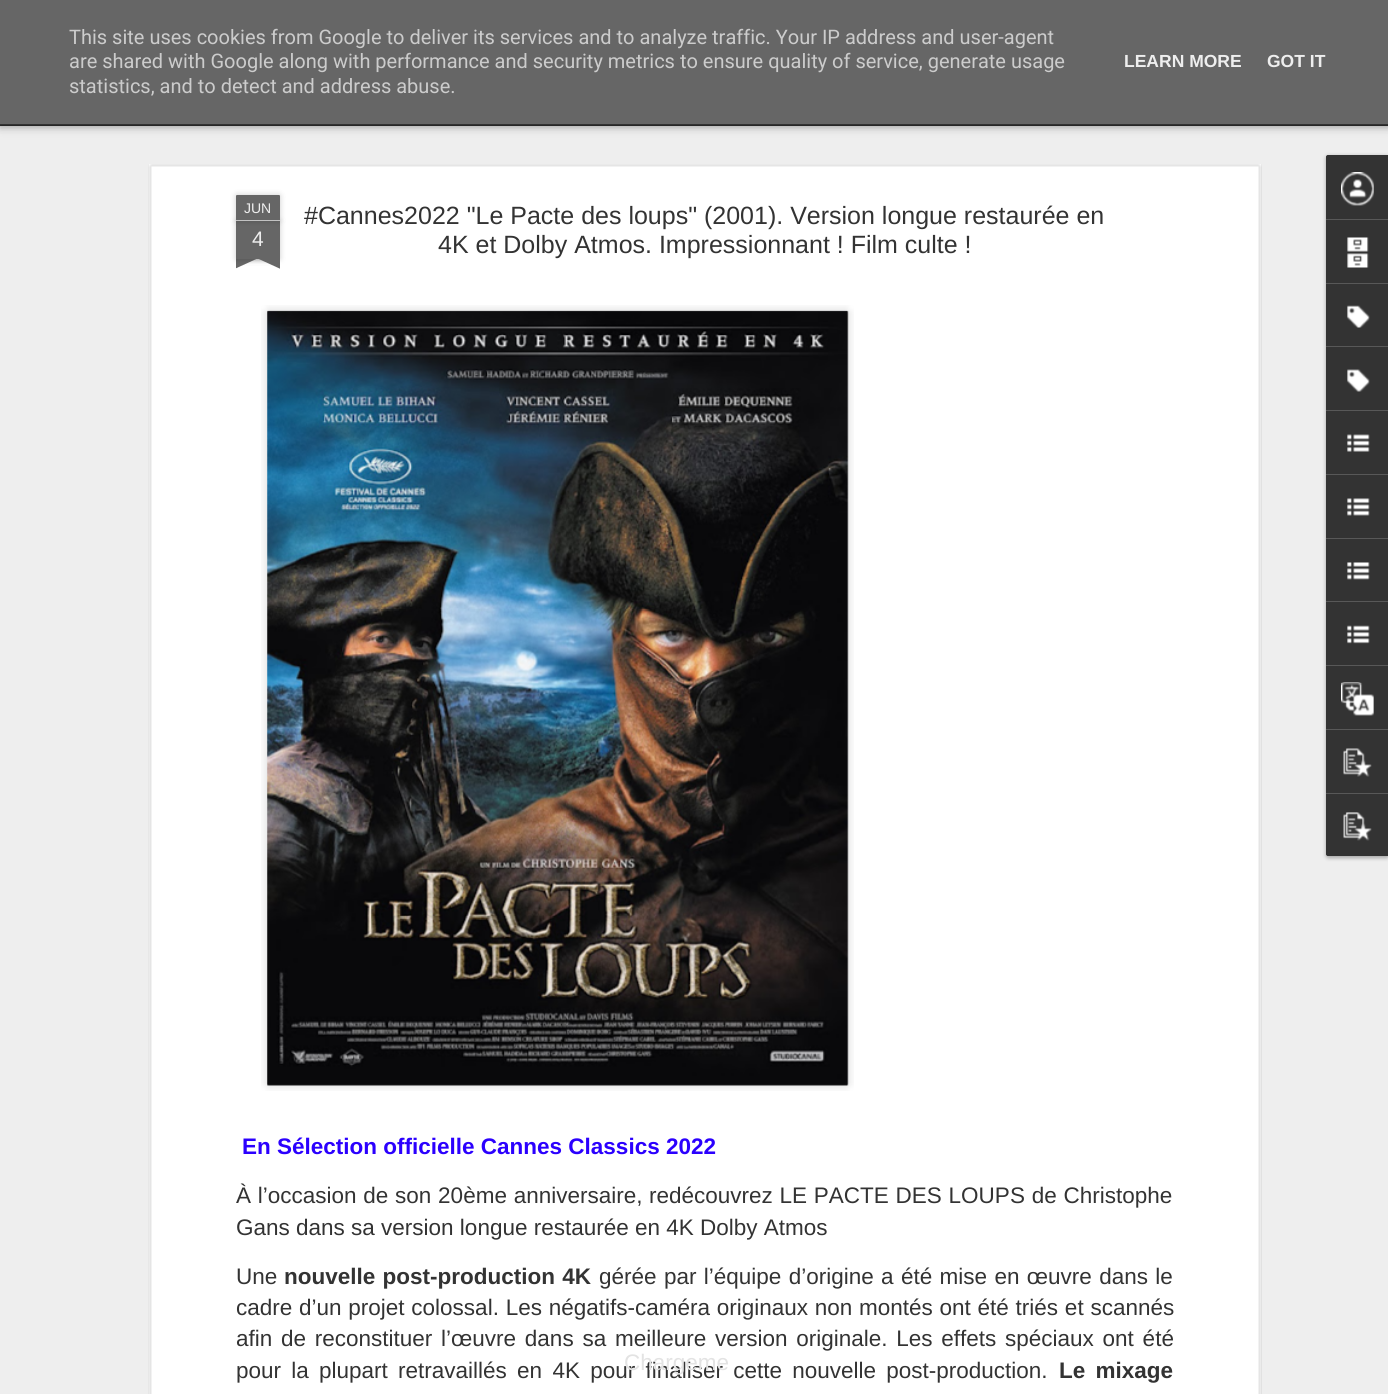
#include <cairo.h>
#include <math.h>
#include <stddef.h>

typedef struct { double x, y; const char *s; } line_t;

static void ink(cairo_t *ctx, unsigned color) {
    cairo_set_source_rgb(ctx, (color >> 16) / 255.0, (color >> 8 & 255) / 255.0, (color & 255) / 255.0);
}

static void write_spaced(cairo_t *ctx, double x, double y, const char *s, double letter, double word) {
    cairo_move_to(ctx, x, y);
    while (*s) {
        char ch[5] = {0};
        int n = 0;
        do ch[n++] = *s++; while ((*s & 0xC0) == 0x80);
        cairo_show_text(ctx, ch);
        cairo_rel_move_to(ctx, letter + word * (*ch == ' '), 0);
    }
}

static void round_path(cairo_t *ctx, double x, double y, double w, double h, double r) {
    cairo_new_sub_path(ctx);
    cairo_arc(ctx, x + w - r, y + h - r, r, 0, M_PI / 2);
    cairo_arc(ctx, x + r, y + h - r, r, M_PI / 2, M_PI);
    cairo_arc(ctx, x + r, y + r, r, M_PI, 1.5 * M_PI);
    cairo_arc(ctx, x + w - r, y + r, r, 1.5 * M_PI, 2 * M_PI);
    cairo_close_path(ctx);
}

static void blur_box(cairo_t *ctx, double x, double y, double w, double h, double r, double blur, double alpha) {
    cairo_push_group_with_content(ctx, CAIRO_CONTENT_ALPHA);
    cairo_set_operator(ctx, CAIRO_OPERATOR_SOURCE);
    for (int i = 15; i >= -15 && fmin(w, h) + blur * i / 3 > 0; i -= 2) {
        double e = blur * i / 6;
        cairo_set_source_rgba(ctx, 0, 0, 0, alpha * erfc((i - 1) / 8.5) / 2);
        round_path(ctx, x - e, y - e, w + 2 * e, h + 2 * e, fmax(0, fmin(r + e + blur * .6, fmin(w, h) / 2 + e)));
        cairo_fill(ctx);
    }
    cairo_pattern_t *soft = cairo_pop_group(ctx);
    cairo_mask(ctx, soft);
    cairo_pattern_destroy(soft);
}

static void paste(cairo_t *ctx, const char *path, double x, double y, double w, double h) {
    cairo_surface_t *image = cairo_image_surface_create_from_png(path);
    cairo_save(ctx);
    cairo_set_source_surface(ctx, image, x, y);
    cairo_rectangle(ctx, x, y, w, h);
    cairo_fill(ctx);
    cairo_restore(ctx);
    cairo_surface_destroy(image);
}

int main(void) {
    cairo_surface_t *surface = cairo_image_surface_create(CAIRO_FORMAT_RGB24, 1388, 1394);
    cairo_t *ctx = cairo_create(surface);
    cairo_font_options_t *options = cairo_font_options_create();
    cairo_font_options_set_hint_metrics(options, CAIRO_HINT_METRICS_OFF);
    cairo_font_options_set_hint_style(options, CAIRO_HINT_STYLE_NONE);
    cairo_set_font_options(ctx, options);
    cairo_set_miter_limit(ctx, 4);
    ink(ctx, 0x333333);
    cairo_paint(ctx);
    ink(ctx, 0xEEEEEE);
    cairo_rectangle(ctx, 0, 126, 1388, 1268);
    cairo_fill(ctx);
    ink(ctx, 0x000000);
    blur_box(ctx, 0, 81, 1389, 44, 0, 5, 0.5);
    ink(ctx, 0x666666);
    cairo_rectangle(ctx, 0, 0, 1388, 124);
    cairo_fill(ctx);
    cairo_select_font_face(ctx, "Roboto", CAIRO_FONT_SLANT_NORMAL, CAIRO_FONT_WEIGHT_NORMAL);
    cairo_set_font_size(ctx, 20);
    ink(ctx, 0xCCCCCC);
    {
        static const line_t items[] = {
            {69, 44, "This site uses cookies from Google to deliver its services and to analyze traffic. Your IP address and user-agent"},
            {69, 68, "are shared with Google along with performance and security metrics to ensure quality of service, generate usage"},
            {69, 93, "statistics, and to detect and address abuse."},
        };
        for (size_t i = 0; i < sizeof items / sizeof *items; i++) {
            cairo_move_to(ctx, items[i].x, items[i].y);
            cairo_show_text(ctx, items[i].s);
        }
    }
    cairo_select_font_face(ctx, "Liberation Sans", CAIRO_FONT_SLANT_NORMAL, CAIRO_FONT_WEIGHT_BOLD);
    cairo_set_font_size(ctx, 17.5);
    ink(ctx, 0xEEEEEE);
    cairo_move_to(ctx, 1124, 67);
    cairo_show_text(ctx, "LEARN MORE");
    cairo_move_to(ctx, 1267, 67);
    cairo_show_text(ctx, "GOT IT");
    ink(ctx, 0x333333);
    cairo_rectangle(ctx, 0, 124, 1388, 1);
    cairo_fill(ctx);
    ink(ctx, 0xFFFFFF);
    cairo_rectangle(ctx, 149, 164, 1112, 1230);
    cairo_fill(ctx);
    paste(ctx, "media/1.png", 148, 164, 1114, 1230);
    ink(ctx, 0x000000);
    blur_box(ctx, 236, 221, 44, 38, 0, 3, 0.2);
    ink(ctx, 0x666666);
    cairo_rectangle(ctx, 236, 221, 44, 38);
    cairo_fill(ctx);
    ink(ctx, 0x000000);
    blur_box(ctx, 236, 195, 44, 26, 1, 3, 0.2);
    ink(ctx, 0x666666);
    cairo_new_path(ctx);
    cairo_move_to(ctx, 237, 195);
    cairo_line_to(ctx, 279, 195);
    cairo_curve_to(ctx, 279.5, 195, 280, 195.5, 280, 196);
    cairo_line_to(ctx, 280, 221);
    cairo_line_to(ctx, 236, 221);
    cairo_line_to(ctx, 236, 196);
    cairo_curve_to(ctx, 236, 195.5, 236.5, 195, 237, 195);
    cairo_close_path(ctx);
    cairo_fill(ctx);
    ink(ctx, 0xC2C2C2);
    cairo_rectangle(ctx, 236, 220, 44, 1);
    cairo_fill(ctx);
    cairo_select_font_face(ctx, "Liberation Sans", CAIRO_FONT_SLANT_NORMAL, CAIRO_FONT_WEIGHT_NORMAL);
    cairo_set_font_size(ctx, 14);
    ink(ctx, 0xEEEEEE);
    cairo_move_to(ctx, 244, 213);
    cairo_show_text(ctx, "JUN");
    cairo_set_font_size(ctx, 21);
    cairo_move_to(ctx, 252, 246);
    cairo_show_text(ctx, "4");
    cairo_save(ctx);
    cairo_rectangle(ctx, 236, 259, 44, 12);
    cairo_clip(ctx);
    ink(ctx, 0x000000);
    blur_box(ctx, 225, 246, 63, 13, 0, 3, 0.2);
    cairo_restore(ctx);
    cairo_save(ctx);
    cairo_rectangle(ctx, 236, 259, 44, 12);
    cairo_clip(ctx);
    ink(ctx, 0x666666);
    cairo_new_path(ctx);
    cairo_move_to(ctx, 225, 260);
    cairo_line_to(ctx, 281, 234);
    cairo_line_to(ctx, 287, 245);
    cairo_line_to(ctx, 230, 271);
    cairo_close_path(ctx);
    cairo_fill(ctx);
    cairo_restore(ctx);
    cairo_save(ctx);
    cairo_rectangle(ctx, 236, 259, 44, 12);
    cairo_clip(ctx);
    ink(ctx, 0x000000);
    blur_box(ctx, 229, 246, 62, 13, 0, 3, 0.2);
    cairo_restore(ctx);
    cairo_save(ctx);
    cairo_rectangle(ctx, 236, 259, 44, 12);
    cairo_clip(ctx);
    ink(ctx, 0x666666);
    cairo_new_path(ctx);
    cairo_move_to(ctx, 234, 234);
    cairo_line_to(ctx, 290, 260);
    cairo_line_to(ctx, 285, 271);
    cairo_line_to(ctx, 228, 245);
    cairo_close_path(ctx);
    cairo_fill(ctx);
    cairo_restore(ctx);
    cairo_set_font_size(ctx, 25);
    ink(ctx, 0x333333);
    cairo_move_to(ctx, 304, 224);
    cairo_show_text(ctx, "#Cannes2022 \"Le Pacte des loups\" (2001). Version longue restaurée en");
    cairo_move_to(ctx, 438, 253);
    cairo_show_text(ctx, "4K et Dolby Atmos. Impressionnant ! Film culte !");
    paste(ctx, "media/2.png", 261, 305, 593, 786);
    paste(ctx, "media/3.png", 267, 310, 582, 776);
    cairo_select_font_face(ctx, "Liberation Sans", CAIRO_FONT_SLANT_NORMAL, CAIRO_FONT_WEIGHT_BOLD);
    cairo_set_font_size(ctx, 22.5);
    ink(ctx, 0x2B00FE);
    cairo_move_to(ctx, 242, 1154);
    cairo_show_text(ctx, "En Sélection officielle Cannes Classics 2022");
    cairo_select_font_face(ctx, "Liberation Sans", CAIRO_FONT_SLANT_NORMAL, CAIRO_FONT_WEIGHT_NORMAL);
    ink(ctx, 0x333333);
    write_spaced(ctx, 236, 1203, "À l’occasion de son 20ème anniversaire,", 0, 0.5);
    write_spaced(ctx, 649, 1203, "redécouvrez LE PACTE DES LOUPS de Christophe", 0, 0.5);
    cairo_move_to(ctx, 236, 1235);
    cairo_show_text(ctx, "Gans dans sa version longue restaurée en 4K Dolby Atmos");
    cairo_move_to(ctx, 236, 1284);
    cairo_show_text(ctx, "Une");
    cairo_select_font_face(ctx, "Liberation Sans", CAIRO_FONT_SLANT_NORMAL, CAIRO_FONT_WEIGHT_BOLD);
    write_spaced(ctx, 284, 1284, "nouvelle post-production 4K", 0, 1);
    cairo_select_font_face(ctx, "Liberation Sans", CAIRO_FONT_SLANT_NORMAL, CAIRO_FONT_WEIGHT_NORMAL);
    write_spaced(ctx, 599, 1284, "gérée par l’équipe d’origine a été mise en œuvre dans le", 0, 1.1);
    write_spaced(ctx, 236, 1315, "cadre d’un projet colossal. Les négatifs-caméra originaux non montés ont été triés et scannés", 0, 0.5);
    write_spaced(ctx, 236, 1346, "afin de reconstituer l’œuvre dans sa meilleure version originale. Les effets spéciaux ont été", 0, 2.5);
    write_spaced(ctx, 236, 1378, "pour la plupart retravaillés en 4K pour finaliser cette nouvelle post-production.", 0, 4);
    cairo_select_font_face(ctx, "Liberation Sans", CAIRO_FONT_SLANT_NORMAL, CAIRO_FONT_WEIGHT_BOLD);
    write_spaced(ctx, 1059, 1378, "Le mixage", 0, 4);
    ink(ctx, 0x000000);
    blur_box(ctx, 1326, 156, 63, 702, 2.5, 2, 0.3);
    ink(ctx, 0x333333);
    cairo_new_path(ctx);
    cairo_move_to(ctx, 1328.5, 155);
    cairo_line_to(ctx, 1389, 155);
    cairo_line_to(ctx, 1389, 856);
    cairo_line_to(ctx, 1328.5, 856);
    cairo_curve_to(ctx, 1327, 856, 1326, 855, 1326, 853.5);
    cairo_line_to(ctx, 1326, 157.5);
    cairo_curve_to(ctx, 1326, 156, 1327, 155, 1328.5, 155);
    cairo_close_path(ctx);
    cairo_fill(ctx);
    cairo_new_path(ctx);
    cairo_move_to(ctx, 1328.5, 155);
    cairo_line_to(ctx, 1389, 155);
    cairo_line_to(ctx, 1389, 219);
    cairo_line_to(ctx, 1326, 219);
    cairo_line_to(ctx, 1326, 157.5);
    cairo_curve_to(ctx, 1326, 156, 1327, 155, 1328.5, 155);
    cairo_close_path(ctx);
    cairo_fill(ctx);
    paste(ctx, "media/4.png", 1341, 172, 33, 34);
    ink(ctx, 0x585858);
    cairo_rectangle(ctx, 1326, 219, 62, 1);
    cairo_fill(ctx);
    paste(ctx, "media/5.png", 1347, 237, 22, 31);
    cairo_rectangle(ctx, 1326, 283, 62, 1);
    cairo_fill(ctx);
    paste(ctx, "media/6.png", 1347, 305, 23, 23);
    cairo_rectangle(ctx, 1326, 346, 62, 1);
    cairo_fill(ctx);
    paste(ctx, "media/7.png", 1347, 369, 23, 23);
    cairo_rectangle(ctx, 1326, 410, 62, 1);
    cairo_fill(ctx);
    paste(ctx, "media/8.png", 1347, 434, 23, 18);
    cairo_rectangle(ctx, 1326, 474, 62, 1);
    cairo_fill(ctx);
    paste(ctx, "media/9.png", 1347, 498, 23, 18);
    cairo_rectangle(ctx, 1326, 538, 62, 1);
    cairo_fill(ctx);
    paste(ctx, "media/10.png", 1347, 562, 23, 18);
    cairo_rectangle(ctx, 1326, 601, 62, 1);
    cairo_fill(ctx);
    paste(ctx, "media/11.png", 1347, 625, 23, 19);
    cairo_rectangle(ctx, 1326, 665, 62, 1);
    cairo_fill(ctx);
    paste(ctx, "media/12.png", 1341, 682, 33, 34);
    cairo_rectangle(ctx, 1326, 729, 62, 1);
    cairo_fill(ctx);
    paste(ctx, "media/13.png", 1343, 748, 29, 29);
    ink(ctx, 0x333333);
    cairo_new_path(ctx);
    cairo_move_to(ctx, 1326, 793);
    cairo_line_to(ctx, 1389, 793);
    cairo_line_to(ctx, 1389, 856);
    cairo_line_to(ctx, 1328.5, 856);
    cairo_curve_to(ctx, 1327, 856, 1326, 855, 1326, 853.5);
    cairo_close_path(ctx);
    cairo_fill(ctx);
    ink(ctx, 0x585858);
    cairo_rectangle(ctx, 1326, 793, 62, 1);
    cairo_fill(ctx);
    paste(ctx, "media/14.png", 1343, 812, 29, 29);
    cairo_select_font_face(ctx, "Liberation Sans", CAIRO_FONT_SLANT_NORMAL, CAIRO_FONT_WEIGHT_NORMAL);
    ink(ctx, 0xE3E3E3);
    cairo_move_to(ctx, 624, 1370);
    cairo_show_text(ctx, "Chargeme");
    cairo_surface_write_to_png(surface, "image.png");
    cairo_font_options_destroy(options);
    cairo_destroy(ctx);
    cairo_surface_destroy(surface);
    return 0;
}
